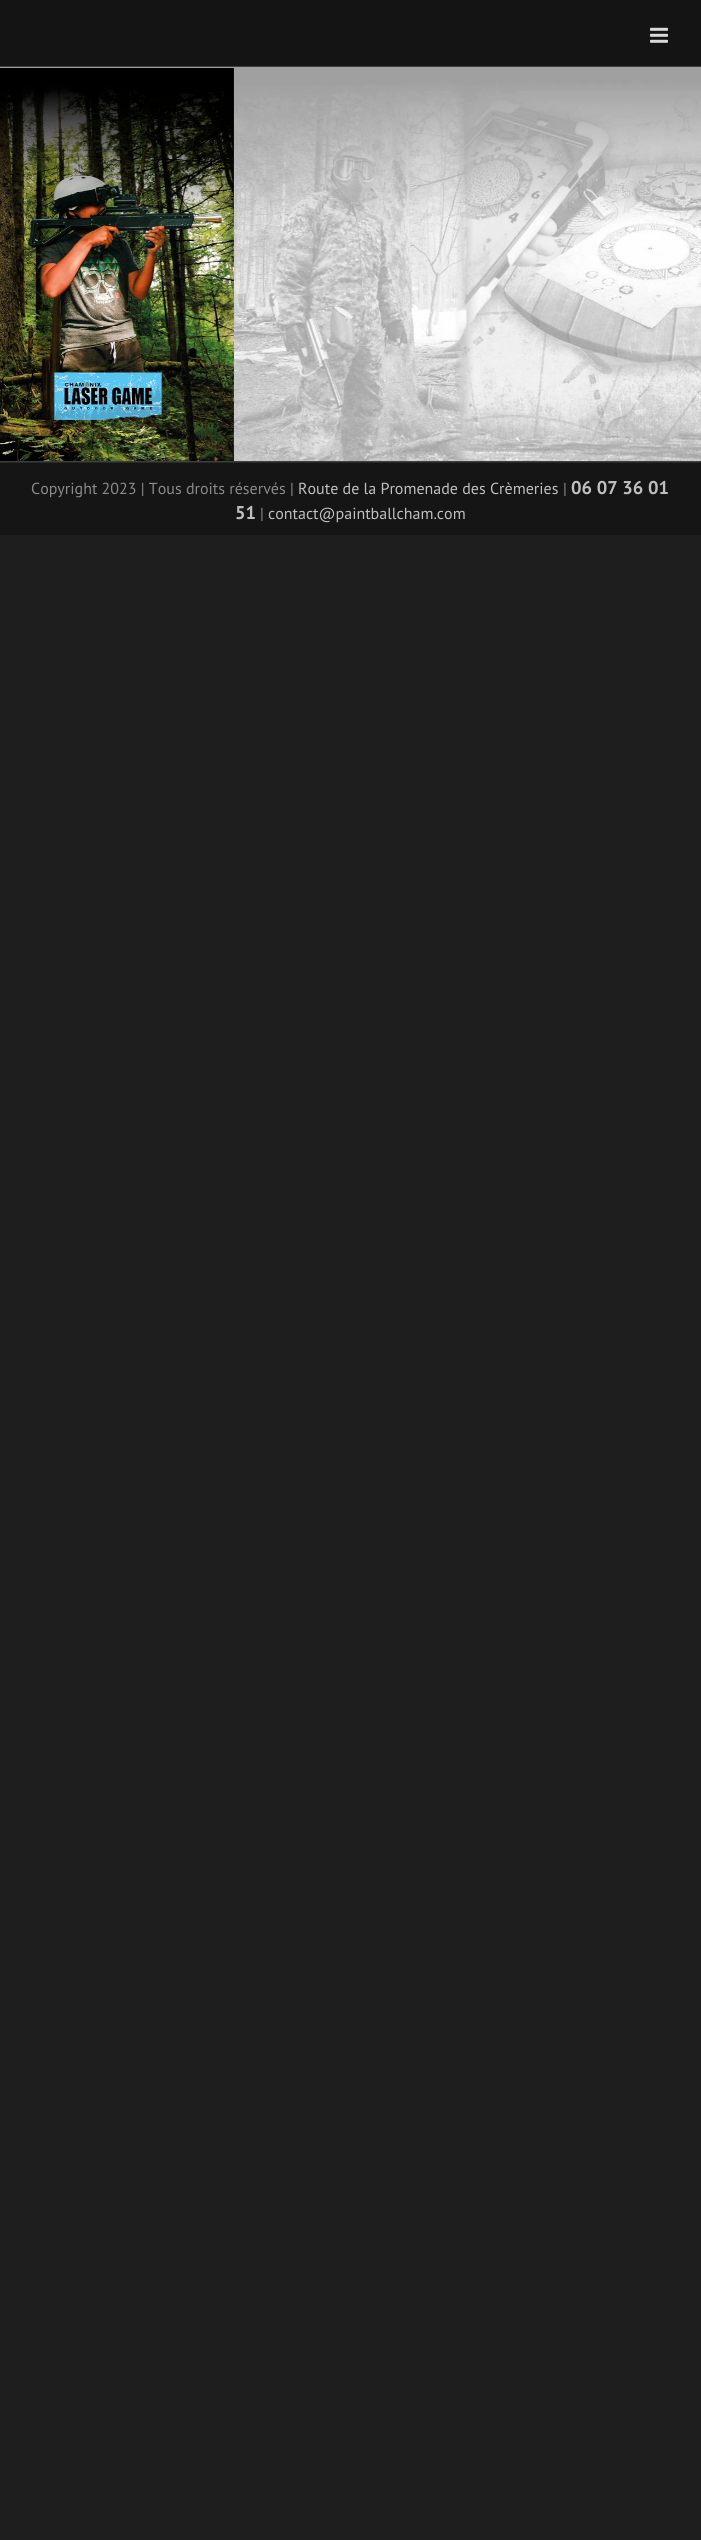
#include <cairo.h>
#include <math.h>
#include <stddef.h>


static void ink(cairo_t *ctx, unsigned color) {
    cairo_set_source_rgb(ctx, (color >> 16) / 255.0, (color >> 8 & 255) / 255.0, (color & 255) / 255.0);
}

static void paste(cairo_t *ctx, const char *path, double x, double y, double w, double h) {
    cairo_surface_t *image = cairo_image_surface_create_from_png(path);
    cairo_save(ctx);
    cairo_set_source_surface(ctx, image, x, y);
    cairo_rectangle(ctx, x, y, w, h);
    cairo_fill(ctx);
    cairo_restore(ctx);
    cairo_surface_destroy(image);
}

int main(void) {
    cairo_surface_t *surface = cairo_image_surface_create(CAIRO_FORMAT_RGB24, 701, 2540);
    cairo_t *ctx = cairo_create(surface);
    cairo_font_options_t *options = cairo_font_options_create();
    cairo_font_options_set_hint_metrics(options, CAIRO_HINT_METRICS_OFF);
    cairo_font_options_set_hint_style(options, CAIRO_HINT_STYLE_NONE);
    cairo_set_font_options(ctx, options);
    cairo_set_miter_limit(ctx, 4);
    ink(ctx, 0x1E1E1E);
    cairo_paint(ctx);
    ink(ctx, 0x141414);
    cairo_rectangle(ctx, 0, 0, 701, 66);
    cairo_fill(ctx);
    paste(ctx, "media/1.png", 650, 27, 18, 16);
    ink(ctx, 0x3E3E3E);
    cairo_rectangle(ctx, 0, 66, 701, 1);
    cairo_fill(ctx);
    cairo_rectangle(ctx, 0, 461, 701, 1);
    cairo_fill(ctx);
    paste(ctx, "media/2.png", 0, 67, 701, 394);
    paste(ctx, "media/3.png", 0, 68, 234, 393);
    paste(ctx, "media/4.png", 54, 372, 108, 48);
    ink(ctx, 0x151516);
    cairo_rectangle(ctx, 0, 463, 701, 72);
    cairo_fill(ctx);
    ink(ctx, 0x29292A);
    cairo_rectangle(ctx, 0, 462, 701, 1);
    cairo_fill(ctx);
    cairo_select_font_face(ctx, "PT Sans", CAIRO_FONT_SLANT_NORMAL, CAIRO_FONT_WEIGHT_NORMAL);
    cairo_set_font_size(ctx, 16);
    ink(ctx, 0x8C8989);
    cairo_move_to(ctx, 31, 494);
    cairo_show_text(ctx, "Copyright 2023 | Tous droits réservés |");
    ink(ctx, 0xBFBFBF);
    cairo_move_to(ctx, 298, 494);
    cairo_show_text(ctx, "Route de la Promenade des Crèmeries");
    ink(ctx, 0x8C8989);
    cairo_move_to(ctx, 563, 494);
    cairo_show_text(ctx, "|");
    cairo_select_font_face(ctx, "PT Sans", CAIRO_FONT_SLANT_NORMAL, CAIRO_FONT_WEIGHT_BOLD);
    cairo_set_font_size(ctx, 18.5);
    ink(ctx, 0xBFBFBF);
    cairo_move_to(ctx, 571, 494);
    cairo_show_text(ctx, "06 07 36 01");
    cairo_move_to(ctx, 235, 519);
    cairo_show_text(ctx, "51");
    cairo_select_font_face(ctx, "PT Sans", CAIRO_FONT_SLANT_NORMAL, CAIRO_FONT_WEIGHT_NORMAL);
    cairo_set_font_size(ctx, 16);
    ink(ctx, 0x8C8989);
    cairo_move_to(ctx, 260, 519);
    cairo_show_text(ctx, "|");
    ink(ctx, 0xBFBFBF);
    cairo_move_to(ctx, 268, 519);
    cairo_show_text(ctx, "contact@paintballcham.com");
    cairo_surface_write_to_png(surface, "image.png");
    cairo_font_options_destroy(options);
    cairo_destroy(ctx);
    cairo_surface_destroy(surface);
    return 0;
}
